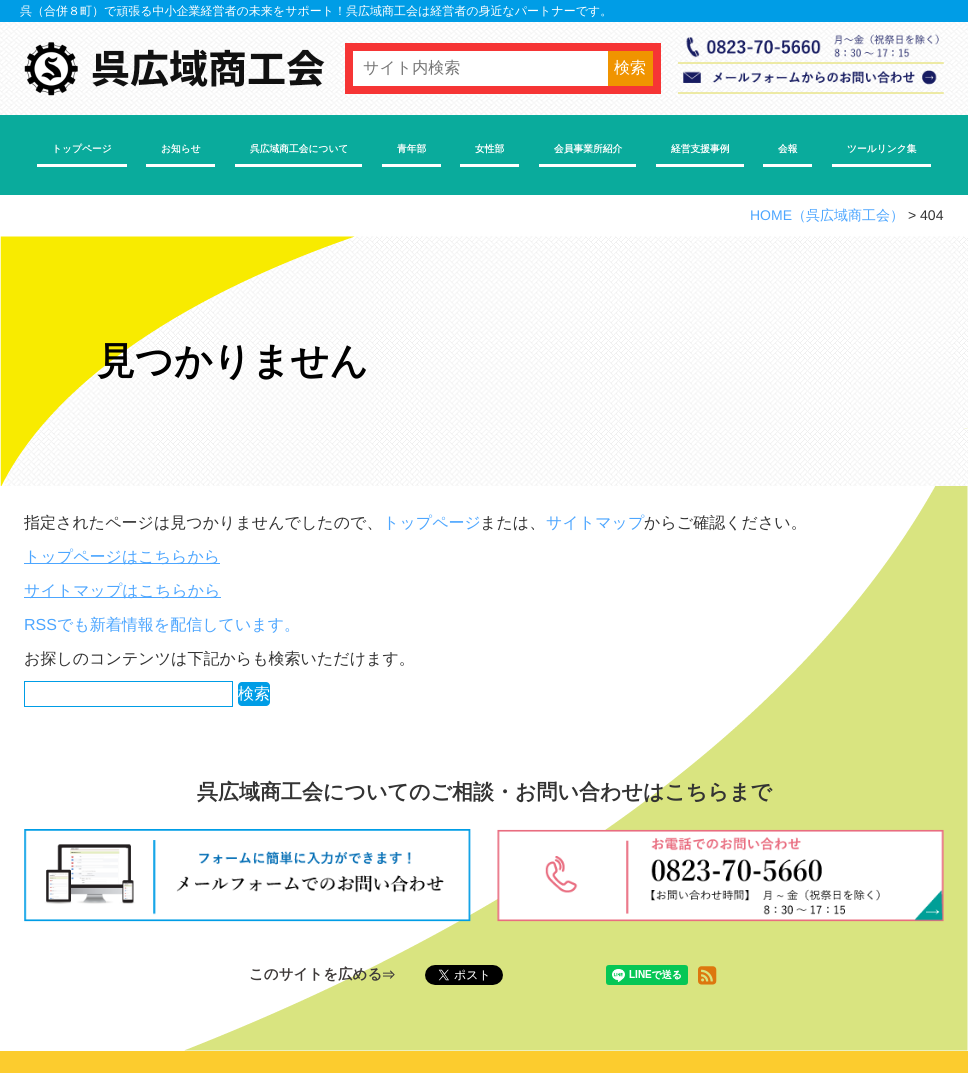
#include <cairo.h>
#include <math.h>
#include <stddef.h>


static void ink(cairo_t *ctx, unsigned color) {
    cairo_set_source_rgb(ctx, (color >> 16) / 255.0, (color >> 8 & 255) / 255.0, (color & 255) / 255.0);
}

static void round_path(cairo_t *ctx, double x, double y, double w, double h, double r) {
    cairo_new_sub_path(ctx);
    cairo_arc(ctx, x + w - r, y + h - r, r, 0, M_PI / 2);
    cairo_arc(ctx, x + r, y + h - r, r, M_PI / 2, M_PI);
    cairo_arc(ctx, x + r, y + r, r, M_PI, 1.5 * M_PI);
    cairo_arc(ctx, x + w - r, y + r, r, 1.5 * M_PI, 2 * M_PI);
    cairo_close_path(ctx);
}

static void paste(cairo_t *ctx, const char *path, double x, double y, double w, double h) {
    cairo_surface_t *image = cairo_image_surface_create_from_png(path);
    cairo_save(ctx);
    cairo_set_source_surface(ctx, image, x, y);
    cairo_rectangle(ctx, x, y, w, h);
    cairo_fill(ctx);
    cairo_restore(ctx);
    cairo_surface_destroy(image);
}

int main(void) {
    cairo_surface_t *surface = cairo_image_surface_create(CAIRO_FORMAT_RGB24, 968, 1073);
    cairo_t *ctx = cairo_create(surface);
    cairo_font_options_t *options = cairo_font_options_create();
    cairo_font_options_set_hint_metrics(options, CAIRO_HINT_METRICS_OFF);
    cairo_font_options_set_hint_style(options, CAIRO_HINT_STYLE_NONE);
    cairo_set_font_options(ctx, options);
    cairo_set_miter_limit(ctx, 4);
    ink(ctx, 0xFFFFFF);
    cairo_paint(ctx);
    paste(ctx, "media/1.png", 0, 22, 968, 93);
    ink(ctx, 0x009DE6);
    cairo_rectangle(ctx, 0, 0, 968, 22);
    cairo_fill(ctx);
    cairo_select_font_face(ctx, "WenQuanYi Zen Hei Medium", CAIRO_FONT_SLANT_NORMAL, CAIRO_FONT_WEIGHT_NORMAL);
    cairo_set_font_size(ctx, 12);
    ink(ctx, 0xFFFFFF);
    cairo_move_to(ctx, 20, 15);
    cairo_show_text(ctx, "呉（合併８町）で頑張る中小企業経営者の未来をサポート！呉広域商工会は経営者の身近なパートナーです。");
    paste(ctx, "media/2.png", 24, 42, 301, 54);
    cairo_rectangle(ctx, 349, 47, 308, 43);
    ink(ctx, 0xF63535);
    cairo_set_line_width(ctx, 8);
    cairo_stroke(ctx);
    ink(ctx, 0xFFFFFF);
    cairo_rectangle(ctx, 353, 51, 255, 35);
    cairo_fill(ctx);
    cairo_set_font_size(ctx, 16);
    ink(ctx, 0x757575);
    cairo_move_to(ctx, 363, 73);
    cairo_show_text(ctx, "サイト内検索");
    ink(ctx, 0xF09400);
    cairo_rectangle(ctx, 608, 51, 45, 35);
    cairo_fill(ctx);
    ink(ctx, 0xFFFFFF);
    cairo_move_to(ctx, 614, 73);
    cairo_show_text(ctx, "検索");
    paste(ctx, "media/3.png", 678, 34, 266, 30);
    paste(ctx, "media/4.png", 678, 70, 266, 24);
    ink(ctx, 0x0AAB9C);
    cairo_rectangle(ctx, 0, 115, 968, 80);
    cairo_fill(ctx);
    cairo_select_font_face(ctx, "WenQuanYi Zen Hei", CAIRO_FONT_SLANT_NORMAL, CAIRO_FONT_WEIGHT_BOLD);
    cairo_set_font_size(ctx, 9.75);
    ink(ctx, 0xFFFFFF);
    cairo_move_to(ctx, 52, 152);
    cairo_show_text(ctx, "トップページ");
    cairo_rectangle(ctx, 37, 164, 90, 3);
    cairo_fill(ctx);
    cairo_move_to(ctx, 161, 152);
    cairo_show_text(ctx, "お知らせ");
    cairo_rectangle(ctx, 146, 164, 69, 3);
    cairo_fill(ctx);
    cairo_move_to(ctx, 250, 152);
    cairo_show_text(ctx, "呉広域商工会について");
    cairo_rectangle(ctx, 235, 164, 127, 3);
    cairo_fill(ctx);
    cairo_move_to(ctx, 397, 152);
    cairo_show_text(ctx, "青年部");
    cairo_rectangle(ctx, 382, 164, 59, 3);
    cairo_fill(ctx);
    cairo_move_to(ctx, 475, 152);
    cairo_show_text(ctx, "女性部");
    cairo_rectangle(ctx, 460, 164, 59, 3);
    cairo_fill(ctx);
    cairo_move_to(ctx, 554, 152);
    cairo_show_text(ctx, "会員事業所紹介");
    cairo_rectangle(ctx, 539, 164, 97, 3);
    cairo_fill(ctx);
    cairo_move_to(ctx, 671, 152);
    cairo_show_text(ctx, "経営支援事例");
    cairo_rectangle(ctx, 656, 164, 88, 3);
    cairo_fill(ctx);
    cairo_move_to(ctx, 778, 152);
    cairo_show_text(ctx, "会報");
    cairo_rectangle(ctx, 763, 164, 49, 3);
    cairo_fill(ctx);
    cairo_move_to(ctx, 847, 152);
    cairo_show_text(ctx, "ツールリンク集");
    cairo_rectangle(ctx, 832, 164, 99, 3);
    cairo_fill(ctx);
    paste(ctx, "media/5.png", 184, 428, 784, 623);
    cairo_select_font_face(ctx, "Liberation Sans", CAIRO_FONT_SLANT_NORMAL, CAIRO_FONT_WEIGHT_NORMAL);
    cairo_set_font_size(ctx, 14);
    ink(ctx, 0x4DA6FF);
    cairo_move_to(ctx, 750, 220);
    cairo_show_text(ctx, "HOME");
    cairo_select_font_face(ctx, "WenQuanYi Zen Hei Medium", CAIRO_FONT_SLANT_NORMAL, CAIRO_FONT_WEIGHT_NORMAL);
    cairo_move_to(ctx, 792, 220);
    cairo_show_text(ctx, "（呉広域商工会）");
    cairo_select_font_face(ctx, "Liberation Sans", CAIRO_FONT_SLANT_NORMAL, CAIRO_FONT_WEIGHT_NORMAL);
    ink(ctx, 0x333333);
    cairo_move_to(ctx, 908, 220);
    cairo_show_text(ctx, "> 404");
    paste(ctx, "media/6.png", 0, 236, 968, 250);
    cairo_select_font_face(ctx, "WenQuanYi Zen Hei", CAIRO_FONT_SLANT_NORMAL, CAIRO_FONT_WEIGHT_BOLD);
    cairo_set_font_size(ctx, 38);
    ink(ctx, 0x000000);
    cairo_move_to(ctx, 97, 374);
    cairo_show_text(ctx, "見つかりません");
    cairo_select_font_face(ctx, "WenQuanYi Zen Hei Medium", CAIRO_FONT_SLANT_NORMAL, CAIRO_FONT_WEIGHT_NORMAL);
    cairo_set_font_size(ctx, 16);
    ink(ctx, 0x333333);
    cairo_move_to(ctx, 24, 528);
    cairo_show_text(ctx, "指定されたページは見つかりませんでしたので、");
    ink(ctx, 0x4DA6FF);
    cairo_move_to(ctx, 383, 528);
    cairo_show_text(ctx, "トップページ");
    ink(ctx, 0x333333);
    cairo_move_to(ctx, 480, 528);
    cairo_show_text(ctx, "または、");
    ink(ctx, 0x4DA6FF);
    cairo_move_to(ctx, 546, 528);
    cairo_show_text(ctx, "サイトマップ");
    ink(ctx, 0x333333);
    cairo_move_to(ctx, 644, 528);
    cairo_show_text(ctx, "からご確認ください。");
    ink(ctx, 0x4DA6FF);
    cairo_rectangle(ctx, 24, 563, 196, 1);
    cairo_fill(ctx);
    cairo_move_to(ctx, 24, 562);
    cairo_show_text(ctx, "トップページはこちらから");
    cairo_rectangle(ctx, 24, 597, 197, 1);
    cairo_fill(ctx);
    cairo_move_to(ctx, 24, 596);
    cairo_show_text(ctx, "サイトマップはこちらから");
    cairo_select_font_face(ctx, "Liberation Sans", CAIRO_FONT_SLANT_NORMAL, CAIRO_FONT_WEIGHT_NORMAL);
    cairo_move_to(ctx, 24, 630);
    cairo_show_text(ctx, "RSS");
    cairo_select_font_face(ctx, "WenQuanYi Zen Hei Medium", CAIRO_FONT_SLANT_NORMAL, CAIRO_FONT_WEIGHT_NORMAL);
    cairo_move_to(ctx, 57, 630);
    cairo_show_text(ctx, "でも新着情報を配信しています。");
    ink(ctx, 0x333333);
    cairo_move_to(ctx, 24, 664);
    cairo_show_text(ctx, "お探しのコンテンツは下記からも検索いただけます。");
    cairo_rectangle(ctx, 24.5, 681.5, 208, 25);
    ink(ctx, 0x009DE6);
    cairo_set_line_width(ctx, 1);
    cairo_stroke(ctx);
    round_path(ctx, 238, 682, 32, 24, 4);
    cairo_fill(ctx);
    ink(ctx, 0xFFFFFF);
    cairo_move_to(ctx, 238, 699);
    cairo_show_text(ctx, "検索");
    cairo_select_font_face(ctx, "WenQuanYi Zen Hei", CAIRO_FONT_SLANT_NORMAL, CAIRO_FONT_WEIGHT_BOLD);
    cairo_set_font_size(ctx, 21);
    ink(ctx, 0x333333);
    cairo_move_to(ctx, 197, 799);
    cairo_show_text(ctx, "呉広域商工会についてのご相談・お問い合わせはこちらまで");
    paste(ctx, "media/7.png", 24, 829, 447, 93);
    paste(ctx, "media/8.png", 497, 829, 447, 93);
    cairo_set_font_size(ctx, 14.5);
    ink(ctx, 0x3E3A39);
    cairo_move_to(ctx, 249, 979);
    cairo_show_text(ctx, "このサイトを広める");
    cairo_move_to(ctx, 381, 980);
    cairo_show_text(ctx, "⇒");
    paste(ctx, "media/9.png", 425, 965, 78, 20);
    paste(ctx, "media/10.png", 606, 965, 82, 20);
    paste(ctx, "media/11.png", 698, 966, 19, 19);
    ink(ctx, 0xFCCC2E);
    cairo_rectangle(ctx, 0, 1051, 968, 22);
    cairo_fill(ctx);
    cairo_surface_write_to_png(surface, "image.png");
    cairo_font_options_destroy(options);
    cairo_destroy(ctx);
    cairo_surface_destroy(surface);
    return 0;
}
